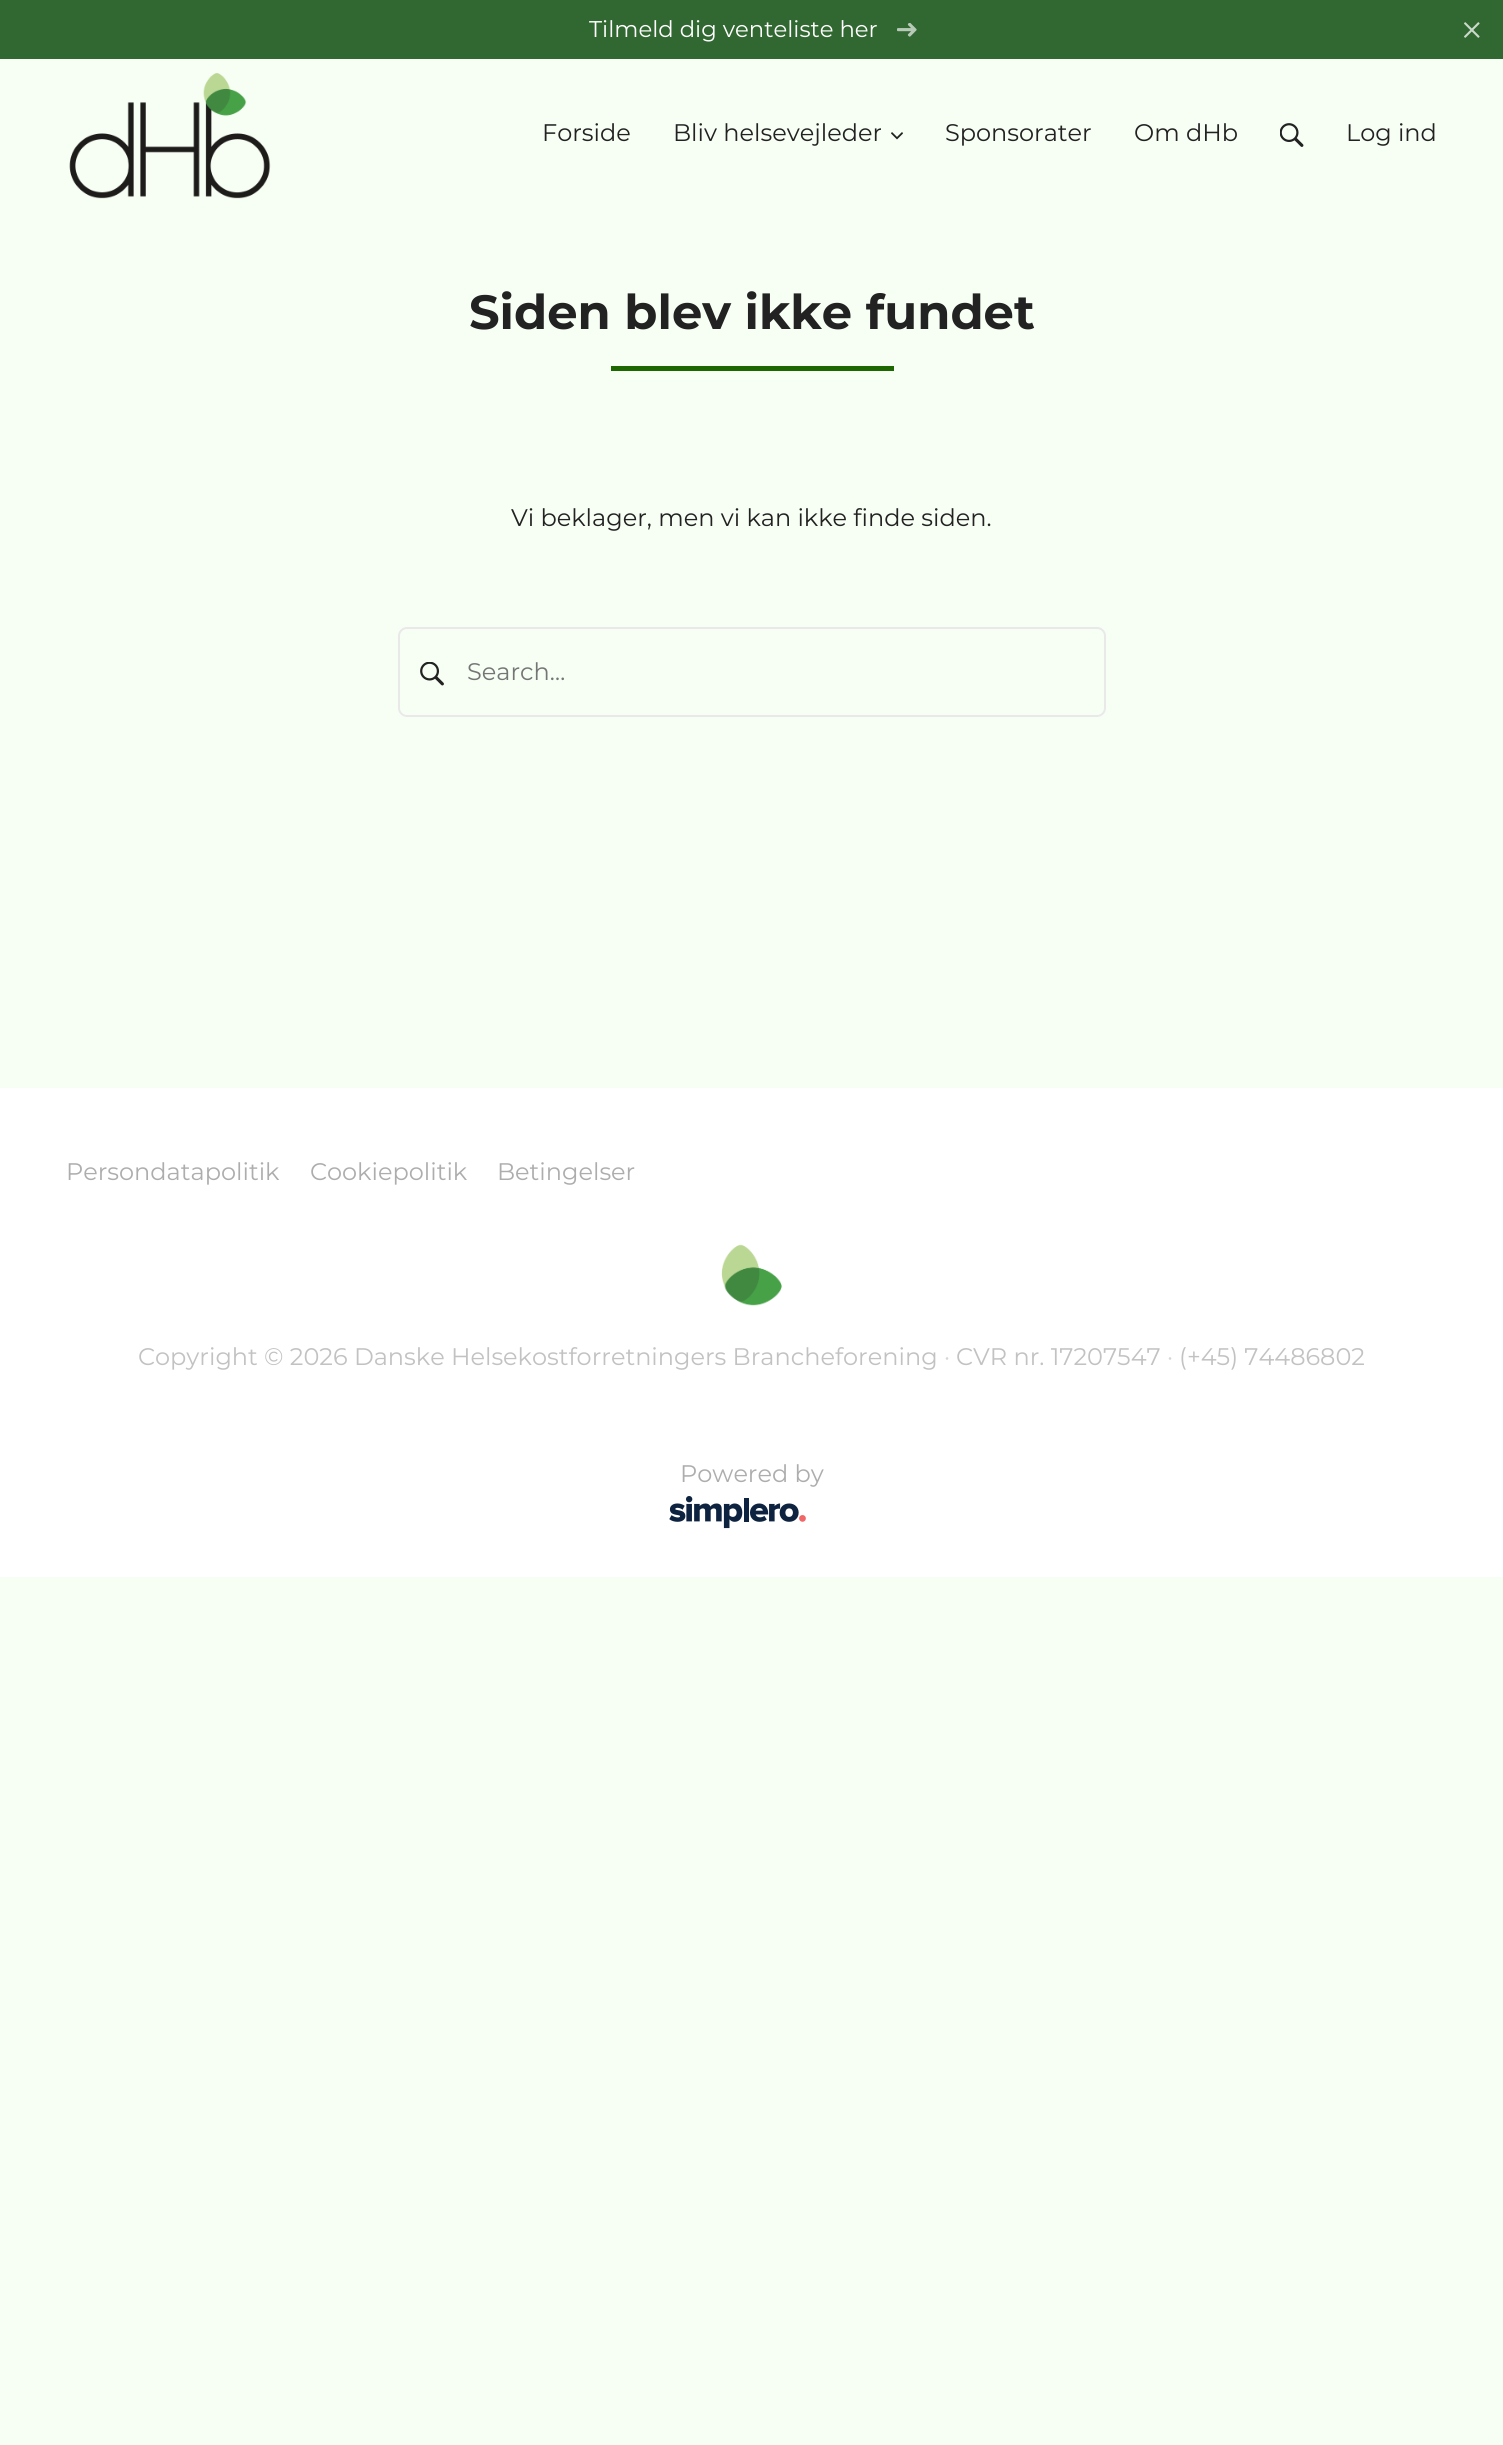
#include <cairo.h>
#include <math.h>
#include <stddef.h>

typedef struct { double x, y; const char *s; } line_t;

static void ink(cairo_t *ctx, unsigned color) {
    cairo_set_source_rgb(ctx, (color >> 16) / 255.0, (color >> 8 & 255) / 255.0, (color & 255) / 255.0);
}

static void round_path(cairo_t *ctx, double x, double y, double w, double h, double r) {
    cairo_new_sub_path(ctx);
    cairo_arc(ctx, x + w - r, y + h - r, r, 0, M_PI / 2);
    cairo_arc(ctx, x + r, y + h - r, r, M_PI / 2, M_PI);
    cairo_arc(ctx, x + r, y + r, r, M_PI, 1.5 * M_PI);
    cairo_arc(ctx, x + w - r, y + r, r, 1.5 * M_PI, 2 * M_PI);
    cairo_close_path(ctx);
}

static void paste(cairo_t *ctx, const char *path, double x, double y, double w, double h) {
    cairo_surface_t *image = cairo_image_surface_create_from_png(path);
    cairo_save(ctx);
    cairo_set_source_surface(ctx, image, x, y);
    cairo_rectangle(ctx, x, y, w, h);
    cairo_fill(ctx);
    cairo_restore(ctx);
    cairo_surface_destroy(image);
}

int main(void) {
    cairo_surface_t *surface = cairo_image_surface_create(CAIRO_FORMAT_RGB24, 1503, 2445);
    cairo_t *ctx = cairo_create(surface);
    cairo_font_options_t *options = cairo_font_options_create();
    cairo_font_options_set_hint_metrics(options, CAIRO_HINT_METRICS_OFF);
    cairo_font_options_set_hint_style(options, CAIRO_HINT_STYLE_NONE);
    cairo_set_font_options(ctx, options);
    cairo_set_miter_limit(ctx, 4);
    ink(ctx, 0xF7FFF4);
    cairo_paint(ctx);
    ink(ctx, 0x316730);
    cairo_rectangle(ctx, 0, 0, 1503, 59);
    cairo_fill(ctx);
    cairo_select_font_face(ctx, "Montserrat", CAIRO_FONT_SLANT_NORMAL, CAIRO_FONT_WEIGHT_NORMAL);
    cairo_set_font_size(ctx, 22.75);
    ink(ctx, 0xFFFFFF);
    cairo_move_to(ctx, 589, 37);
    cairo_show_text(ctx, "Tilmeld dig venteliste her");
    paste(ctx, "media/1.png", 897, 23, 20, 14);
    paste(ctx, "media/2.png", 1464, 22, 16, 16);
    paste(ctx, "media/3.png", 69, 73, 202, 126);
    cairo_set_font_size(ctx, 24);
    ink(ctx, 0x222222);
    cairo_move_to(ctx, 542, 141);
    cairo_show_text(ctx, "Forside");
    cairo_move_to(ctx, 673, 141);
    cairo_show_text(ctx, "Bliv helsevejleder");
    paste(ctx, "media/4.png", 891, 132, 12, 8);
    cairo_move_to(ctx, 945, 141);
    cairo_show_text(ctx, "Sponsorater");
    cairo_move_to(ctx, 1134, 141);
    cairo_show_text(ctx, "Om dHb");
    paste(ctx, "media/5.png", 1280, 123, 24, 24);
    cairo_move_to(ctx, 1346, 141);
    cairo_show_text(ctx, "Log ind");
    cairo_select_font_face(ctx, "Montserrat", CAIRO_FONT_SLANT_NORMAL, CAIRO_FONT_WEIGHT_BOLD);
    cairo_set_font_size(ctx, 48);
    cairo_move_to(ctx, 469, 329);
    cairo_show_text(ctx, "Siden blev ikke fundet");
    ink(ctx, 0x1D6701);
    cairo_rectangle(ctx, 611, 366, 283, 5);
    cairo_fill(ctx);
    cairo_select_font_face(ctx, "Montserrat", CAIRO_FONT_SLANT_NORMAL, CAIRO_FONT_WEIGHT_NORMAL);
    cairo_set_font_size(ctx, 24);
    ink(ctx, 0x222222);
    cairo_move_to(ctx, 511, 526);
    cairo_show_text(ctx, "Vi beklager, men vi kan ikke finde siden.");
    round_path(ctx, 399, 628, 706, 88, 8);
    ink(ctx, 0xE9E9E9);
    cairo_stroke(ctx);
    paste(ctx, "media/6.png", 420, 662, 24, 24);
    ink(ctx, 0x757575);
    cairo_move_to(ctx, 467, 680);
    cairo_show_text(ctx, "Search…");
    ink(ctx, 0xFFFFFF);
    cairo_rectangle(ctx, 0, 1088, 1503, 489);
    cairo_fill(ctx);
    ink(ctx, 0xADADAD);
    {
        static const line_t items[] = {
            {66, 1180, "Persondatapolitik"},
            {310, 1180, "Cookiepolitik"},
            {497, 1180, "Betingelser"},
        };
        for (size_t i = 0; i < sizeof items / sizeof *items; i++) {
            cairo_move_to(ctx, items[i].x, items[i].y);
            cairo_show_text(ctx, items[i].s);
        }
    }
    paste(ctx, "media/7.png", 721, 1244, 61, 62);
    ink(ctx, 0xC2C2C2);
    cairo_move_to(ctx, 138, 1365);
    cairo_show_text(ctx, "Copyright © 2026 Danske Helsekostforretningers Brancheforening");
    ink(ctx, 0xD6D6D6);
    cairo_move_to(ctx, 944, 1365);
    cairo_show_text(ctx, "·");
    ink(ctx, 0xC2C2C2);
    cairo_move_to(ctx, 956, 1365);
    cairo_show_text(ctx, "CVR nr. 17207547");
    ink(ctx, 0xD6D6D6);
    cairo_move_to(ctx, 1167, 1365);
    cairo_show_text(ctx, "·");
    ink(ctx, 0xC2C2C2);
    cairo_move_to(ctx, 1179, 1365);
    cairo_show_text(ctx, "(+45) 74486802");
    ink(ctx, 0xADADAD);
    cairo_move_to(ctx, 680, 1482);
    cairo_show_text(ctx, "Powered by");
    paste(ctx, "media/8.png", 669, 1496, 137, 33);
    cairo_surface_write_to_png(surface, "image.png");
    cairo_font_options_destroy(options);
    cairo_destroy(ctx);
    cairo_surface_destroy(surface);
    return 0;
}
